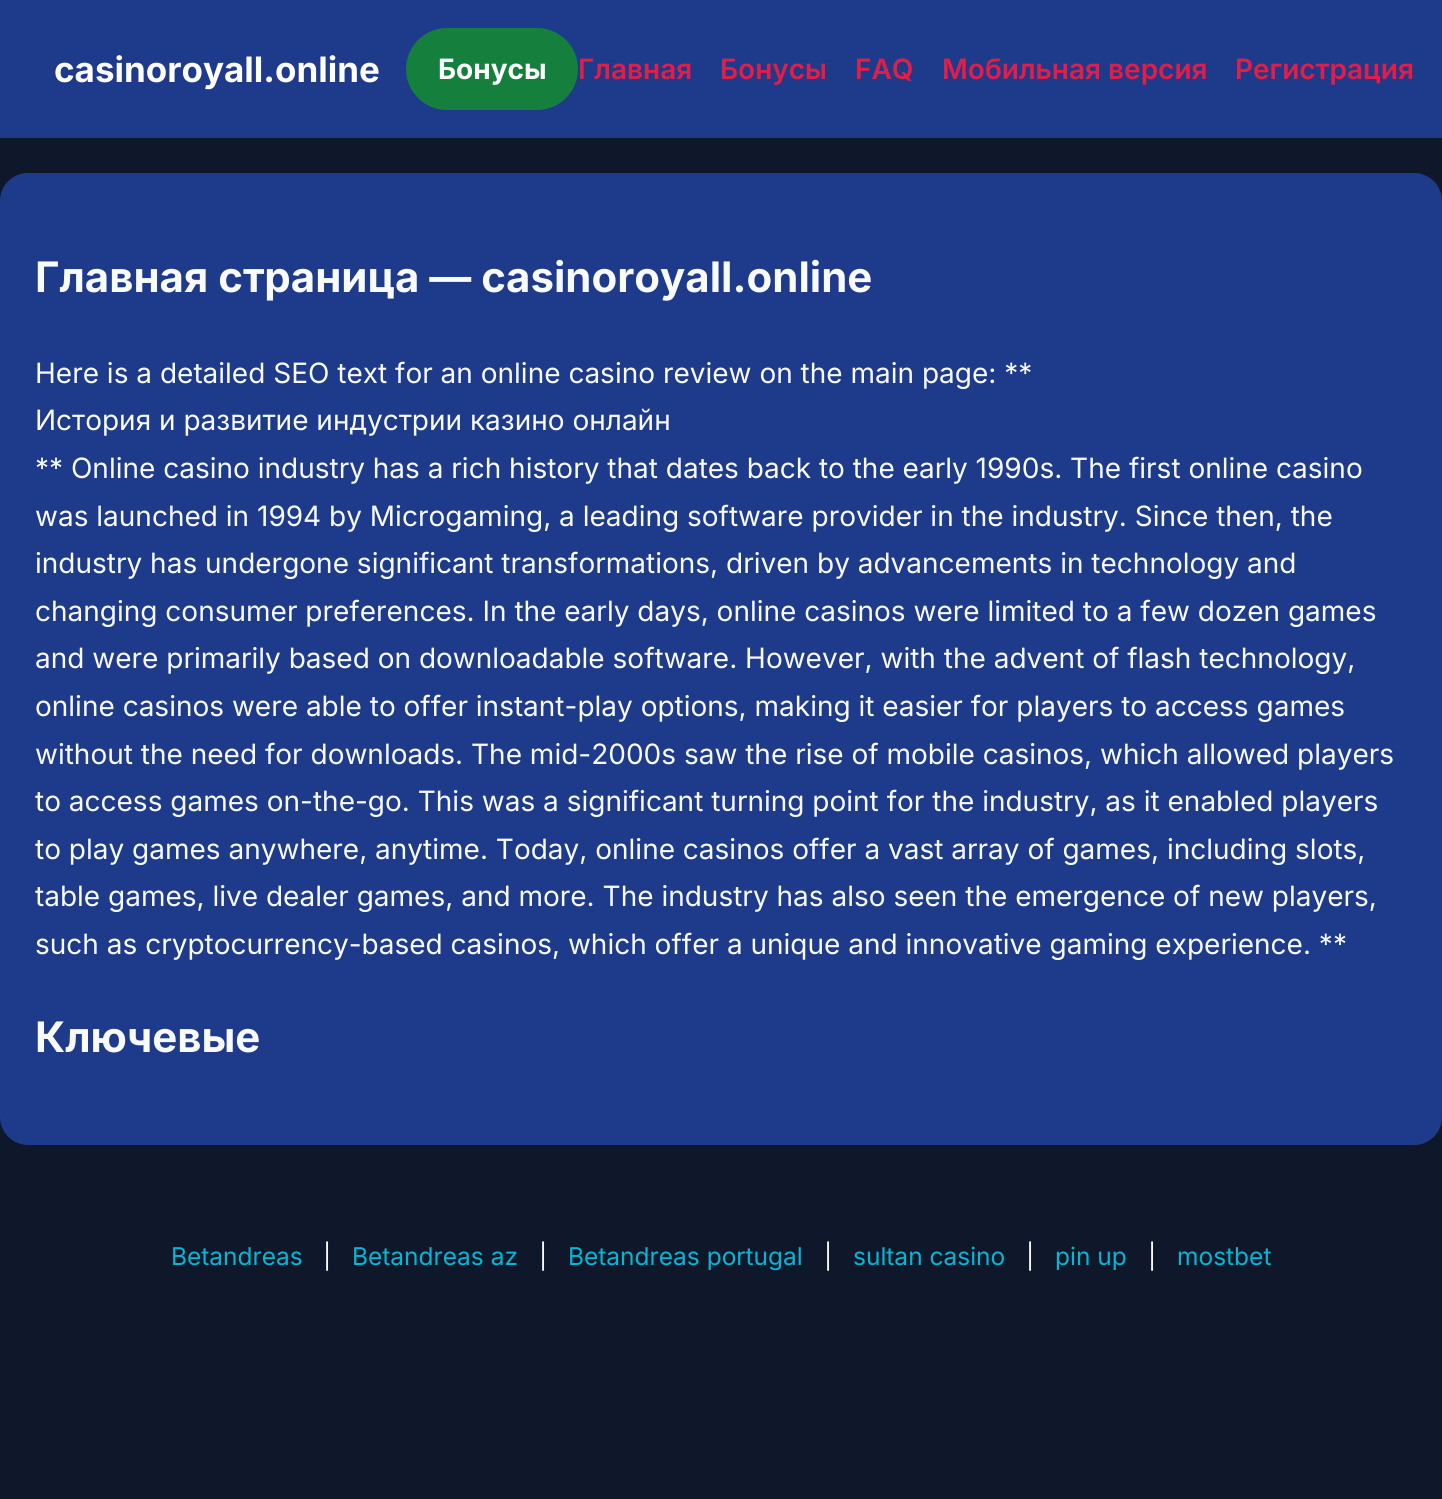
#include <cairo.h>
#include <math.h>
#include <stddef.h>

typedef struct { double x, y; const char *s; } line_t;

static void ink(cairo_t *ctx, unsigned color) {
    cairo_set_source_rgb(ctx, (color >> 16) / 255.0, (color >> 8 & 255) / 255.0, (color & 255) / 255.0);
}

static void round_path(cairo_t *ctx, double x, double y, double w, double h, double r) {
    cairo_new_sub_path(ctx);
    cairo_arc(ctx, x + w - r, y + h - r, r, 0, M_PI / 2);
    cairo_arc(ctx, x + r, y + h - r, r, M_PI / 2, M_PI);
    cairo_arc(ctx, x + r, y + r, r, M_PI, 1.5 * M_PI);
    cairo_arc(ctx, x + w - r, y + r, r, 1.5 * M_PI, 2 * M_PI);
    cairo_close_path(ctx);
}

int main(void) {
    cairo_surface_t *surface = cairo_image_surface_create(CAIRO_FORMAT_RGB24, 1442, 1499);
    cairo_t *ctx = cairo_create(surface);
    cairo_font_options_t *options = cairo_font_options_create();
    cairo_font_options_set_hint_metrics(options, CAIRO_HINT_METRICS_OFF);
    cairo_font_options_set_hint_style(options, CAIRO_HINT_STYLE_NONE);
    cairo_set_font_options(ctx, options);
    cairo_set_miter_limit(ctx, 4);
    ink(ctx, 0x0F172A);
    cairo_paint(ctx);
    ink(ctx, 0x1E3A8A);
    cairo_rectangle(ctx, 0, 0, 1442, 138);
    cairo_fill(ctx);
    cairo_select_font_face(ctx, "Inter", CAIRO_FONT_SLANT_NORMAL, CAIRO_FONT_WEIGHT_BOLD);
    cairo_set_font_size(ctx, 35);
    ink(ctx, 0xFFFFFF);
    cairo_move_to(ctx, 54, 82);
    cairo_show_text(ctx, "casinoroyall.online");
    ink(ctx, 0x15803D);
    round_path(ctx, 406, 28, 172, 82, 41);
    cairo_fill(ctx);
    cairo_set_font_size(ctx, 28);
    ink(ctx, 0xFFFFFF);
    cairo_move_to(ctx, 438, 79);
    cairo_show_text(ctx, "Бонусы");
    cairo_select_font_face(ctx, "Inter SemiBold", CAIRO_FONT_SLANT_NORMAL, CAIRO_FONT_WEIGHT_NORMAL);
    ink(ctx, 0xE11D48);
    {
        static const line_t items[] = {
            {578, 79, "Главная"},
            {720, 79, "Бонусы"},
            {855, 79, "FAQ"},
            {942, 79, "Мобильная версия"},
            {1235, 79, "Регистрация"},
        };
        for (size_t i = 0; i < sizeof items / sizeof *items; i++) {
            cairo_move_to(ctx, items[i].x, items[i].y);
            cairo_show_text(ctx, items[i].s);
        }
    }
    ink(ctx, 0x1E3A8A);
    round_path(ctx, 0, 173, 1442, 972, 28);
    cairo_fill(ctx);
    cairo_select_font_face(ctx, "Inter", CAIRO_FONT_SLANT_NORMAL, CAIRO_FONT_WEIGHT_BOLD);
    cairo_set_font_size(ctx, 42);
    ink(ctx, 0xF8FAFC);
    cairo_move_to(ctx, 35, 292);
    cairo_show_text(ctx, "Главная страница — casinoroyall.online");
    cairo_select_font_face(ctx, "Inter", CAIRO_FONT_SLANT_NORMAL, CAIRO_FONT_WEIGHT_NORMAL);
    cairo_set_font_size(ctx, 28);
    {
        static const line_t items[] = {
            {35, 383, "Here is a detailed SEO text for an online casino review on the main page: **"},
            {35, 430, "История и развитие индустрии казино онлайн"},
            {35, 478, "** Online casino industry has a rich history that dates back to the early 1990s. The first online casino"},
            {35, 526, "was launched in 1994 by Microgaming, a leading software provider in the industry. Since then, the"},
            {35, 573, "industry has undergone significant transformations, driven by advancements in technology and"},
            {35, 621, "changing consumer preferences. In the early days, online casinos were limited to a few dozen games"},
            {35, 668, "and were primarily based on downloadable software. However, with the advent of flash technology,"},
            {35, 716, "online casinos were able to offer instant-play options, making it easier for players to access games"},
            {35, 764, "without the need for downloads. The mid-2000s saw the rise of mobile casinos, which allowed players"},
            {35, 811, "to access games on-the-go. This was a significant turning point for the industry, as it enabled players"},
            {35, 859, "to play games anywhere, anytime. Today, online casinos offer a vast array of games, including slots,"},
            {35, 906, "table games, live dealer games, and more. The industry has also seen the emergence of new players,"},
            {35, 954, "such as cryptocurrency-based casinos, which offer a unique and innovative gaming experience. **"},
        };
        for (size_t i = 0; i < sizeof items / sizeof *items; i++) {
            cairo_move_to(ctx, items[i].x, items[i].y);
            cairo_show_text(ctx, items[i].s);
        }
    }
    cairo_select_font_face(ctx, "Inter", CAIRO_FONT_SLANT_NORMAL, CAIRO_FONT_WEIGHT_BOLD);
    cairo_set_font_size(ctx, 42);
    cairo_move_to(ctx, 35, 1052);
    cairo_show_text(ctx, "Ключевые");
    cairo_select_font_face(ctx, "Inter", CAIRO_FONT_SLANT_NORMAL, CAIRO_FONT_WEIGHT_NORMAL);
    cairo_set_font_size(ctx, 24.5);
    ink(ctx, 0x06B6D4);
    cairo_move_to(ctx, 171, 1265);
    cairo_show_text(ctx, "Betandreas");
    ink(ctx, 0xF8FAFC);
    cairo_move_to(ctx, 323, 1265);
    cairo_show_text(ctx, "|");
    ink(ctx, 0x06B6D4);
    cairo_move_to(ctx, 352, 1265);
    cairo_show_text(ctx, "Betandreas az");
    ink(ctx, 0xF8FAFC);
    cairo_move_to(ctx, 539, 1265);
    cairo_show_text(ctx, "|");
    ink(ctx, 0x06B6D4);
    cairo_move_to(ctx, 568, 1265);
    cairo_show_text(ctx, "Betandreas portugal");
    ink(ctx, 0xF8FAFC);
    cairo_move_to(ctx, 824, 1265);
    cairo_show_text(ctx, "|");
    ink(ctx, 0x06B6D4);
    cairo_move_to(ctx, 853, 1265);
    cairo_show_text(ctx, "sultan casino");
    ink(ctx, 0xF8FAFC);
    cairo_move_to(ctx, 1026, 1265);
    cairo_show_text(ctx, "|");
    ink(ctx, 0x06B6D4);
    cairo_move_to(ctx, 1055, 1265);
    cairo_show_text(ctx, "pin up");
    ink(ctx, 0xF8FAFC);
    cairo_move_to(ctx, 1148, 1265);
    cairo_show_text(ctx, "|");
    ink(ctx, 0x06B6D4);
    cairo_move_to(ctx, 1177, 1265);
    cairo_show_text(ctx, "mostbet");
    cairo_surface_write_to_png(surface, "image.png");
    cairo_font_options_destroy(options);
    cairo_destroy(ctx);
    cairo_surface_destroy(surface);
    return 0;
}
